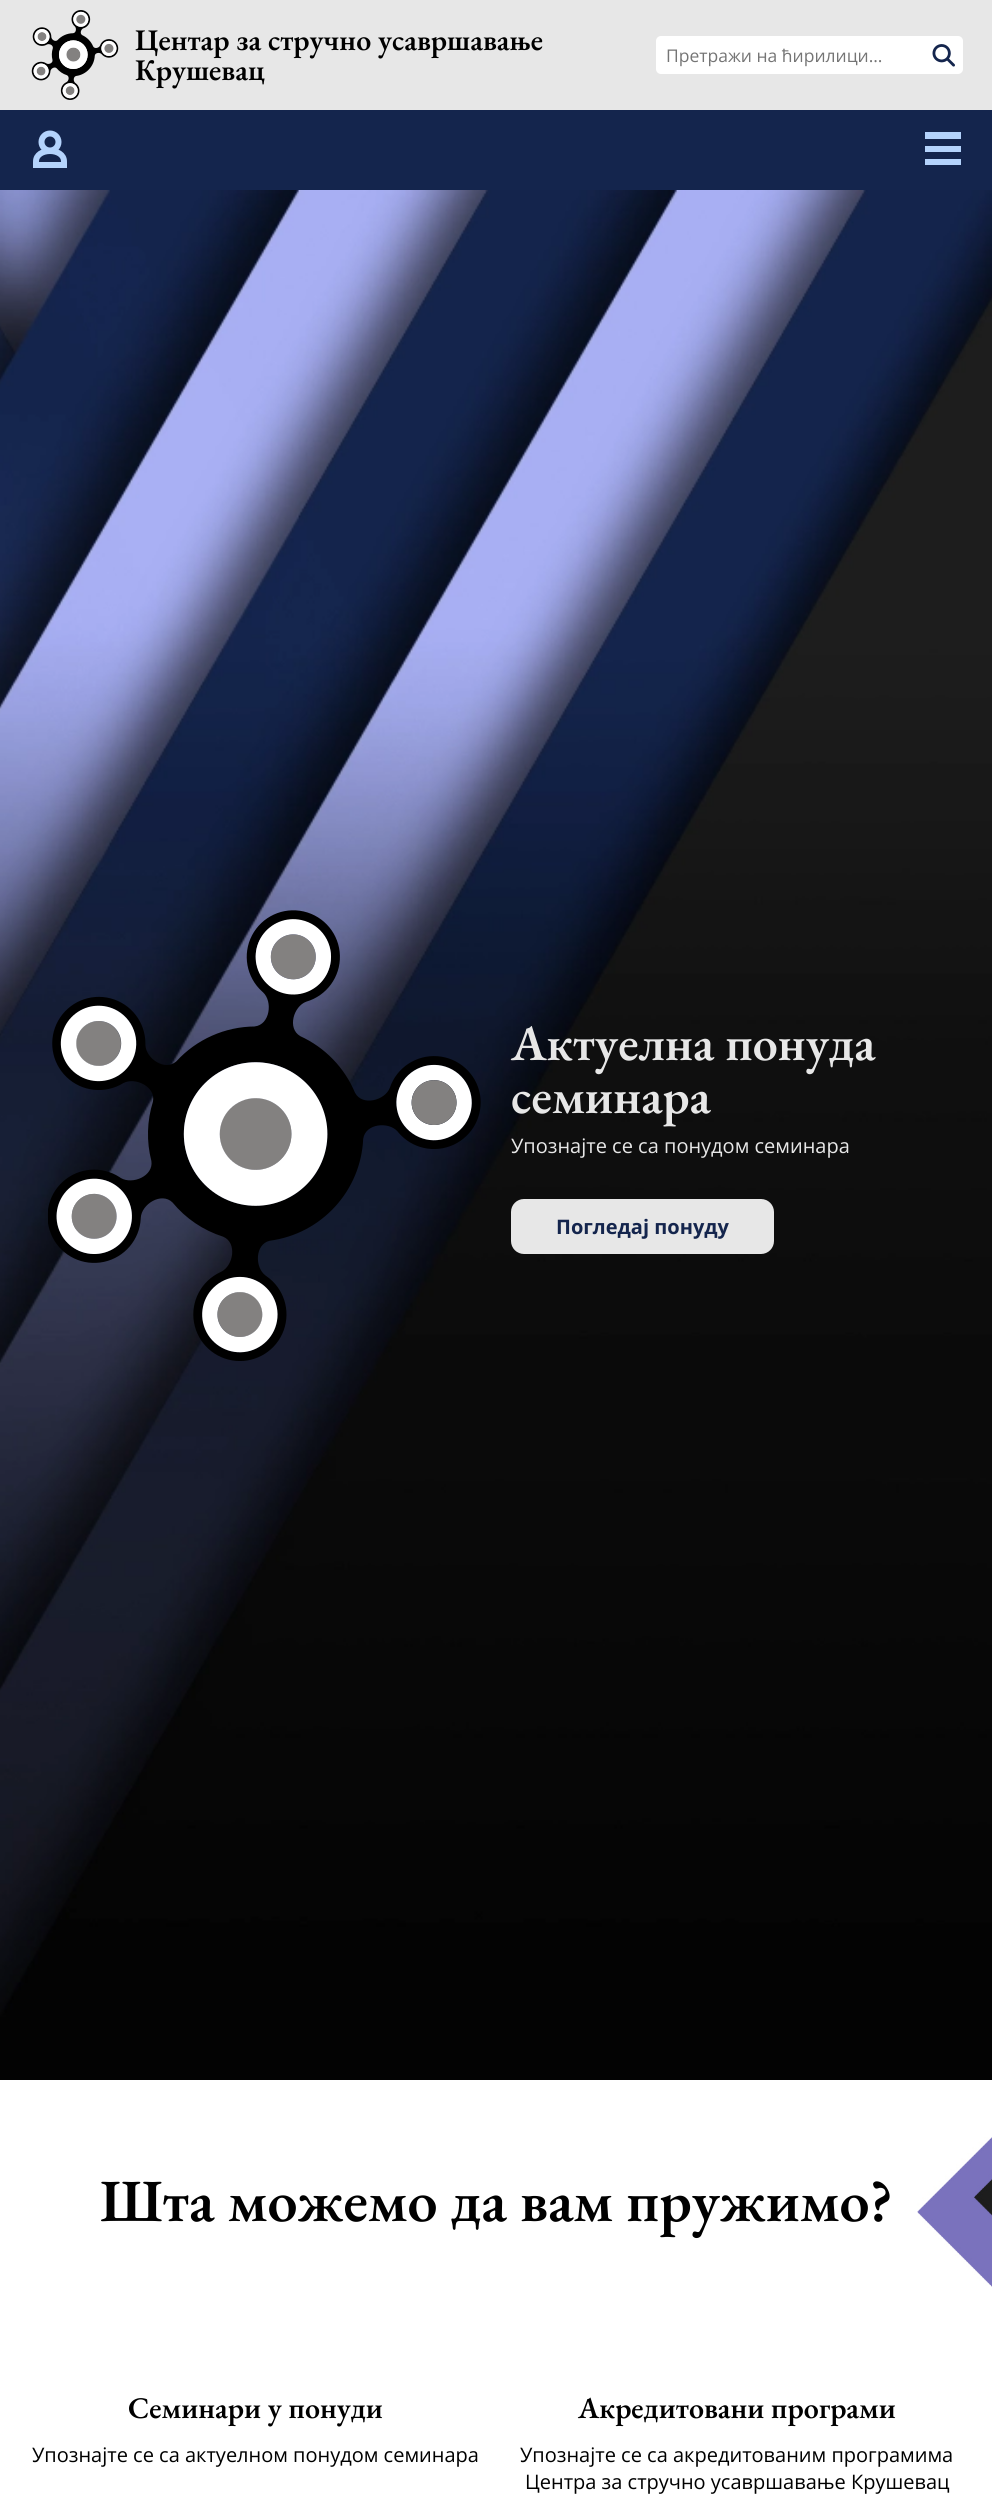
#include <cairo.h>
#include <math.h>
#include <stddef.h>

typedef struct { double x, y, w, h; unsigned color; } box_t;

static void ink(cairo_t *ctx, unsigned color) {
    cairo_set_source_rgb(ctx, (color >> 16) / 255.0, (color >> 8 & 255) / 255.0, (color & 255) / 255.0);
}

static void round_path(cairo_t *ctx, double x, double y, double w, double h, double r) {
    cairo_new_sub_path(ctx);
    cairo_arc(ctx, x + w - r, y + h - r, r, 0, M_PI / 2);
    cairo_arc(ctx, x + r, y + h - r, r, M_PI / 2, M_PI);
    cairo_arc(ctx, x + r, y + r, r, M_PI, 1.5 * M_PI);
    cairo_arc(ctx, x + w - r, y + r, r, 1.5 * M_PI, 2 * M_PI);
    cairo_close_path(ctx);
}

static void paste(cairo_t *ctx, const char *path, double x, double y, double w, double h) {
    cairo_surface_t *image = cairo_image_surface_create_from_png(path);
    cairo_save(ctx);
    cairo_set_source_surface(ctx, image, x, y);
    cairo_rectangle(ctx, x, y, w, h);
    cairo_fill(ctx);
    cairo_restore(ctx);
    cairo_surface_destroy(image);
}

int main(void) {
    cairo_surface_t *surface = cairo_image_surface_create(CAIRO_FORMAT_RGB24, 992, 2519);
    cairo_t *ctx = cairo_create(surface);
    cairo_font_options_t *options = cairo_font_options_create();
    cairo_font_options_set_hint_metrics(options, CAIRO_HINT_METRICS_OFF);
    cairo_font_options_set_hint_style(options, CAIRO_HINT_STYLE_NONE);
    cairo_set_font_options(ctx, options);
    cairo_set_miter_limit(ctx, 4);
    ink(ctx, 0xFFFFFF);
    cairo_paint(ctx);
    ink(ctx, 0xE7E7E7);
    cairo_rectangle(ctx, 0, 0, 992, 110);
    cairo_fill(ctx);
    paste(ctx, "media/1.png", 31, 10, 88, 90);
    cairo_select_font_face(ctx, "EB Garamond SemiBold", CAIRO_FONT_SLANT_NORMAL, CAIRO_FONT_WEIGHT_NORMAL);
    cairo_set_font_size(ctx, 30);
    ink(ctx, 0x000000);
    cairo_move_to(ctx, 135, 50);
    cairo_show_text(ctx, "Центар за стручно усавршавање");
    cairo_move_to(ctx, 135, 80);
    cairo_show_text(ctx, "Крушевац");
    ink(ctx, 0xFFFFFF);
    round_path(ctx, 656, 36, 307, 38, 5);
    cairo_fill(ctx);
    cairo_select_font_face(ctx, "Open Sans", CAIRO_FONT_SLANT_NORMAL, CAIRO_FONT_WEIGHT_NORMAL);
    cairo_set_font_size(ctx, 17.5);
    ink(ctx, 0x757575);
    cairo_move_to(ctx, 666, 62);
    cairo_show_text(ctx, "Претражи на ћирилици…");
    paste(ctx, "media/2.png", 932, 44, 23, 23);
    ink(ctx, 0x14254D);
    cairo_rectangle(ctx, 0, 110, 992, 80);
    cairo_fill(ctx);
    cairo_arc(ctx, 50, 142, 8.5, 0, 2 * M_PI);
    ink(ctx, 0xB4D3FC);
    cairo_set_line_width(ctx, 6);
    cairo_stroke(ctx);
    cairo_new_path(ctx);
    cairo_move_to(ctx, 36, 161.5);
    cairo_curve_to(ctx, 36, 147.5, 64, 147.5, 64, 161.5);
    cairo_set_line_cap(ctx, CAIRO_LINE_CAP_ROUND);
    cairo_stroke(ctx);
    {
        static const box_t items[] = {
            {33, 162, 34, 6, 0xB4D3FC},
            {925, 132, 36, 7, 0xB4D3FC},
            {925, 146, 36, 6, 0xB4D3FC},
            {925, 159, 36, 6, 0xB4D3FC},
        };
        for (size_t i = 0; i < sizeof items / sizeof *items; i++) {
            ink(ctx, items[i].color);
            cairo_rectangle(ctx, items[i].x, items[i].y, items[i].w, items[i].h);
            cairo_fill(ctx);
        }
    }
    paste(ctx, "media/3.png", 0, 190, 992, 1890);
    paste(ctx, "media/4.png", 48, 910, 433, 451);
    cairo_select_font_face(ctx, "EB Garamond SemiBold", CAIRO_FONT_SLANT_NORMAL, CAIRO_FONT_WEIGHT_NORMAL);
    cairo_set_font_size(ctx, 50);
    ink(ctx, 0xE7E7E7);
    cairo_move_to(ctx, 511, 1060);
    cairo_show_text(ctx, "Актуелна понуда");
    cairo_move_to(ctx, 511, 1113);
    cairo_show_text(ctx, "семинара");
    cairo_select_font_face(ctx, "Open Sans", CAIRO_FONT_SLANT_NORMAL, CAIRO_FONT_WEIGHT_NORMAL);
    cairo_set_font_size(ctx, 20);
    cairo_move_to(ctx, 511, 1153);
    cairo_show_text(ctx, "Упознајте се са понудом семинара");
    round_path(ctx, 511, 1199, 263, 55, 13);
    cairo_fill(ctx);
    cairo_select_font_face(ctx, "Open Sans", CAIRO_FONT_SLANT_NORMAL, CAIRO_FONT_WEIGHT_BOLD);
    ink(ctx, 0x14254D);
    cairo_move_to(ctx, 556, 1234);
    cairo_show_text(ctx, "Погледај понуду");
    paste(ctx, "media/5.png", 917, 2137, 75, 150);
    cairo_select_font_face(ctx, "EB Garamond SemiBold", CAIRO_FONT_SLANT_NORMAL, CAIRO_FONT_WEIGHT_NORMAL);
    cairo_set_font_size(ctx, 60);
    ink(ctx, 0x000000);
    cairo_move_to(ctx, 100, 2221);
    cairo_show_text(ctx, "Шта можемо да вам пружимо?");
    cairo_set_font_size(ctx, 30);
    cairo_move_to(ctx, 128, 2418);
    cairo_show_text(ctx, "Семинари у понуди");
    cairo_select_font_face(ctx, "Open Sans", CAIRO_FONT_SLANT_NORMAL, CAIRO_FONT_WEIGHT_NORMAL);
    cairo_set_font_size(ctx, 20);
    cairo_move_to(ctx, 32, 2462);
    cairo_show_text(ctx, "Упознајте се са актуелном понудом семинара");
    cairo_select_font_face(ctx, "EB Garamond SemiBold", CAIRO_FONT_SLANT_NORMAL, CAIRO_FONT_WEIGHT_NORMAL);
    cairo_set_font_size(ctx, 30);
    cairo_move_to(ctx, 578, 2418);
    cairo_show_text(ctx, "Акредитовани програми");
    cairo_select_font_face(ctx, "Open Sans", CAIRO_FONT_SLANT_NORMAL, CAIRO_FONT_WEIGHT_NORMAL);
    cairo_set_font_size(ctx, 20);
    cairo_move_to(ctx, 520, 2462);
    cairo_show_text(ctx, "Упознајте се са акредитованим програмима");
    cairo_move_to(ctx, 525, 2489);
    cairo_show_text(ctx, "Центра за стручно усавршавање Крушевац");
    cairo_surface_write_to_png(surface, "image.png");
    cairo_font_options_destroy(options);
    cairo_destroy(ctx);
    cairo_surface_destroy(surface);
    return 0;
}
